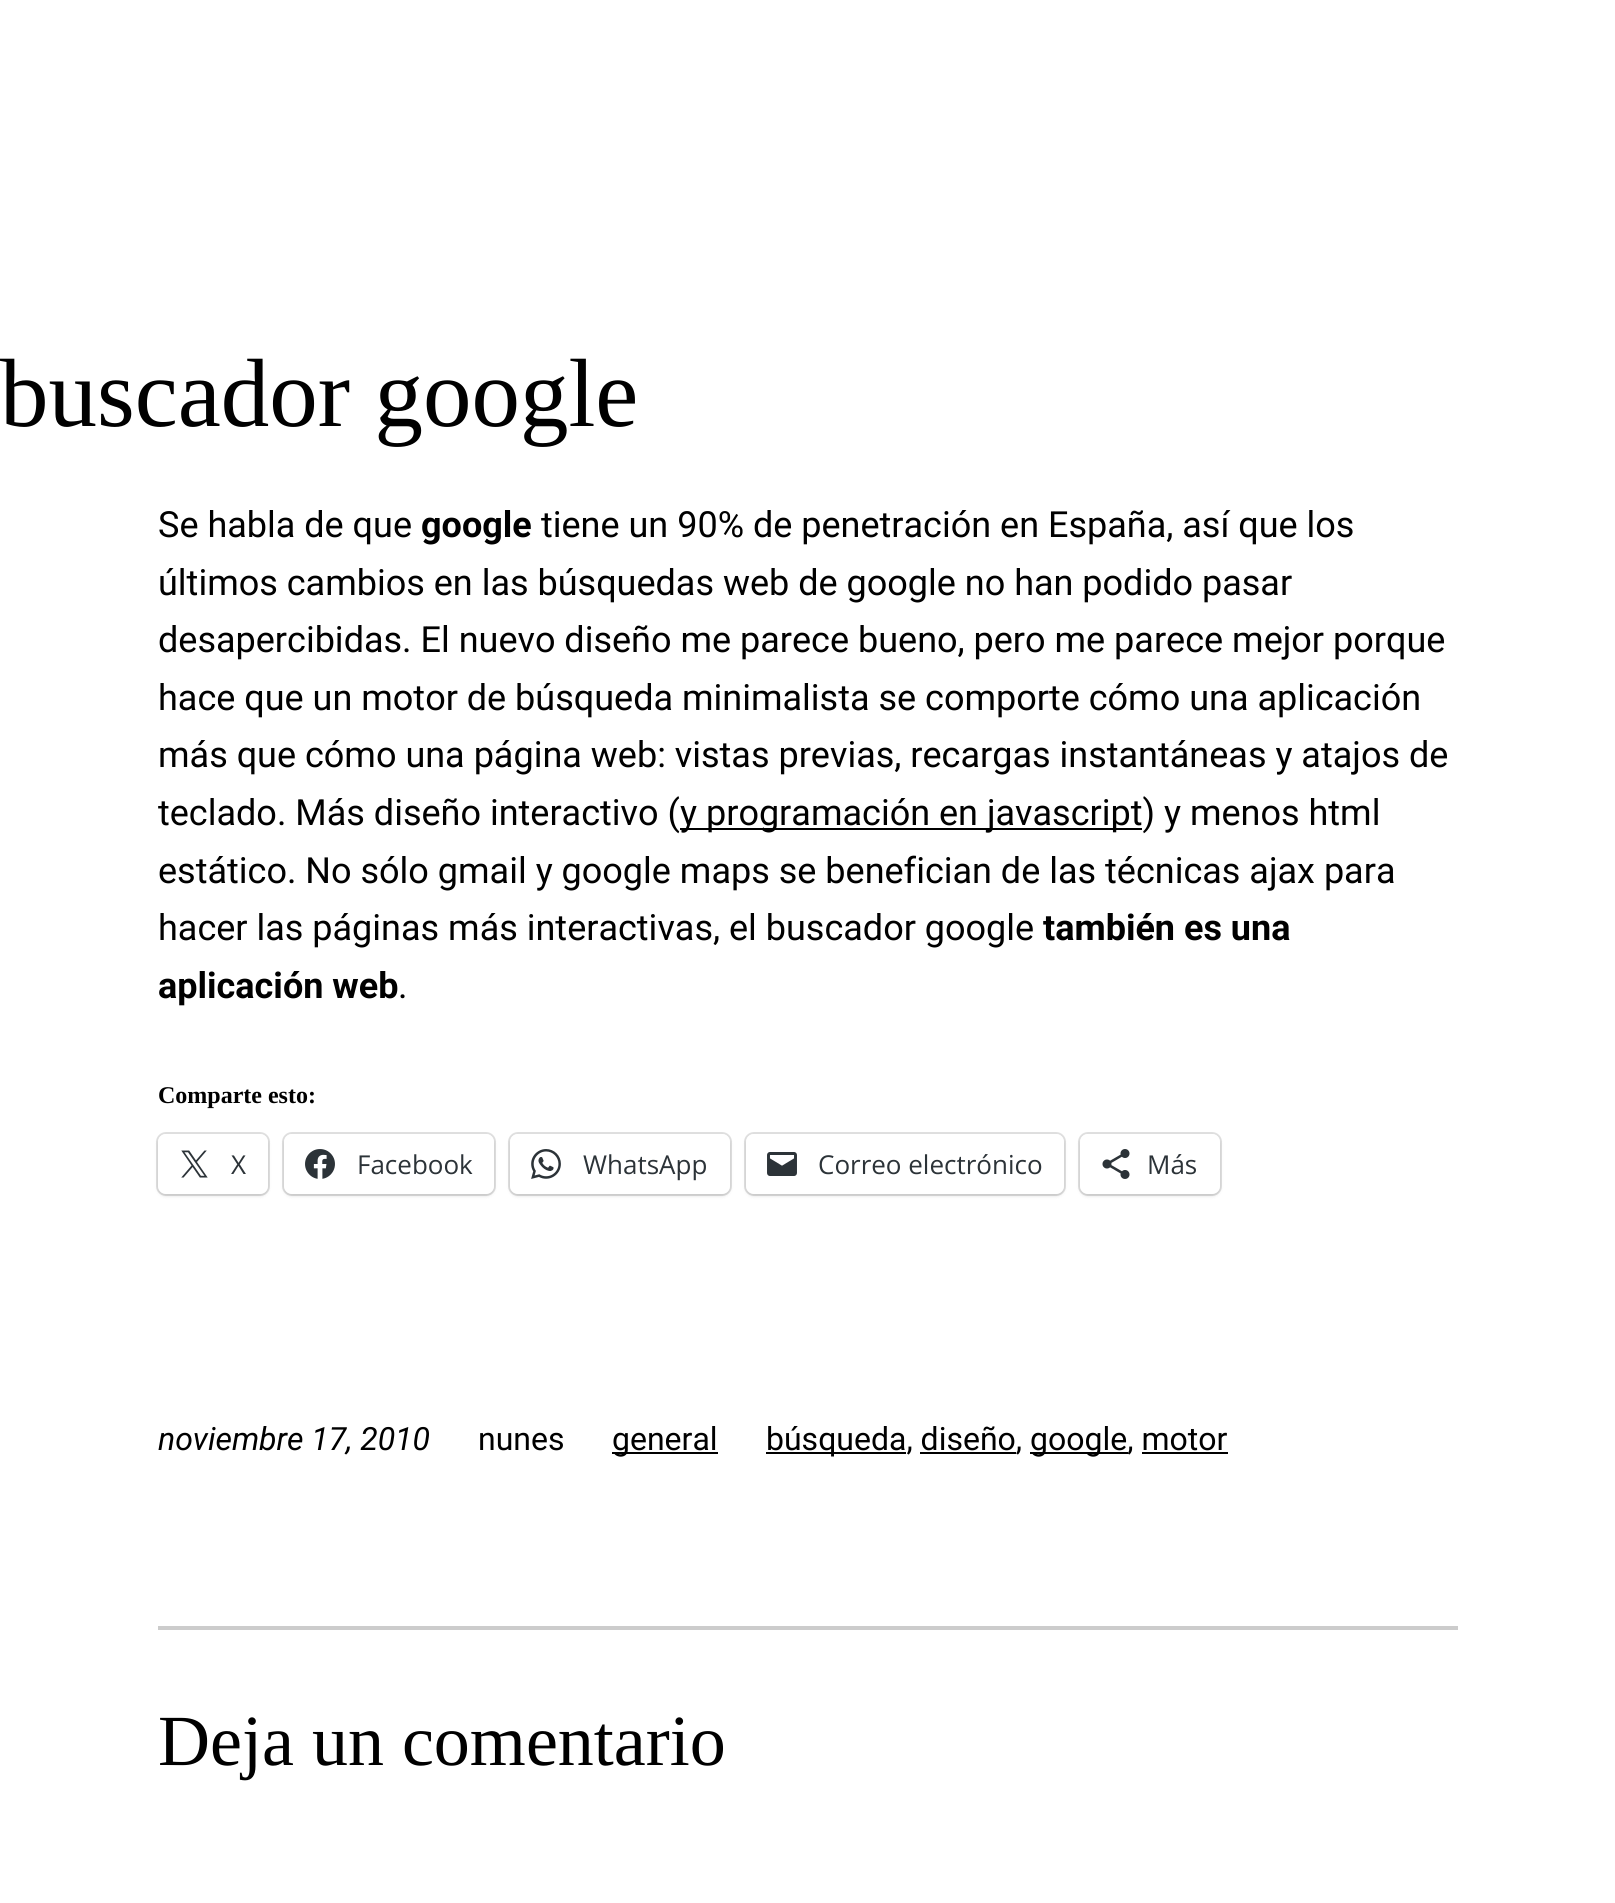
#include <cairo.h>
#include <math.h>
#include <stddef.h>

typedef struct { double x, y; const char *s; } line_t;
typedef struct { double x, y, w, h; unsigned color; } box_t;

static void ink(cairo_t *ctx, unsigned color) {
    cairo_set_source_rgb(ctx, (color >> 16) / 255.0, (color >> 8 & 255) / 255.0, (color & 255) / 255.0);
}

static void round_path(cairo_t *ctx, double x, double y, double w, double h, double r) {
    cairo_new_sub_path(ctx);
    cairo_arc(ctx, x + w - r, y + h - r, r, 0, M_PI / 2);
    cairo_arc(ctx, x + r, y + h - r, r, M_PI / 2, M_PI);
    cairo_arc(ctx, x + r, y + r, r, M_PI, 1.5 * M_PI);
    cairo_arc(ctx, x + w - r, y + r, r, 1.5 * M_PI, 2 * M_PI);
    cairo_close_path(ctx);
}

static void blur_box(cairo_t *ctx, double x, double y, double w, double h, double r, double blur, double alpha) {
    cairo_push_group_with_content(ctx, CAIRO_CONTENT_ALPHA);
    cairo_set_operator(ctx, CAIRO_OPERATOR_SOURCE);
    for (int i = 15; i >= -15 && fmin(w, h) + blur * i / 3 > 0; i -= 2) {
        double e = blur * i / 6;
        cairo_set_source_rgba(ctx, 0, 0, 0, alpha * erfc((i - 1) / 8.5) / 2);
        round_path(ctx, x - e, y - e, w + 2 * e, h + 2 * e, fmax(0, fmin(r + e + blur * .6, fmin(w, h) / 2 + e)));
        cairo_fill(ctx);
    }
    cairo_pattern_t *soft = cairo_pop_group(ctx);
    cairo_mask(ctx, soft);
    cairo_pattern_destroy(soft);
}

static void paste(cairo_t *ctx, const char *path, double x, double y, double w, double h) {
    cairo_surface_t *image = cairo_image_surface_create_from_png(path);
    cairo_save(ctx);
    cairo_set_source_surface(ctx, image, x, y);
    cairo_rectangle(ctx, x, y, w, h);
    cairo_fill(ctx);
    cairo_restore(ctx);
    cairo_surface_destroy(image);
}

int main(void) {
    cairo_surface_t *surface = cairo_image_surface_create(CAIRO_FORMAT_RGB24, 1615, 1903);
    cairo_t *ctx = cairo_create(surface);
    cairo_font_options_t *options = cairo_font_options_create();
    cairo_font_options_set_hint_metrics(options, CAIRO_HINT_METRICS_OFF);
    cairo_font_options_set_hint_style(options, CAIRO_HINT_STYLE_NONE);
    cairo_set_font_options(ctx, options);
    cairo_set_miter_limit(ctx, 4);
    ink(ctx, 0xFFFFFF);
    cairo_paint(ctx);
    cairo_select_font_face(ctx, "Liberation Serif", CAIRO_FONT_SLANT_NORMAL, CAIRO_FONT_WEIGHT_NORMAL);
    cairo_set_font_size(ctx, 97);
    ink(ctx, 0x000000);
    cairo_move_to(ctx, 0, 426);
    cairo_show_text(ctx, "buscador google");
    cairo_select_font_face(ctx, "Roboto", CAIRO_FONT_SLANT_NORMAL, CAIRO_FONT_WEIGHT_NORMAL);
    cairo_set_font_size(ctx, 36);
    cairo_move_to(ctx, 158, 537);
    cairo_show_text(ctx, "Se habla de que");
    cairo_select_font_face(ctx, "Roboto", CAIRO_FONT_SLANT_NORMAL, CAIRO_FONT_WEIGHT_BOLD);
    cairo_move_to(ctx, 421, 537);
    cairo_show_text(ctx, "google");
    cairo_select_font_face(ctx, "Roboto", CAIRO_FONT_SLANT_NORMAL, CAIRO_FONT_WEIGHT_NORMAL);
    {
        static const line_t items[] = {
            {541, 537, "tiene un 90% de penetración en España, así que los"},
            {158, 595, "últimos cambios en las búsquedas web de google no han podido pasar"},
            {158, 652, "desapercibidas. El nuevo diseño me parece bueno, pero me parece mejor porque"},
            {158, 710, "hace que un motor de búsqueda minimalista se comporte cómo una aplicación"},
            {158, 767, "más que cómo una página web: vistas previas, recargas instantáneas y atajos de"},
            {158, 825, "teclado. Más diseño interactivo ("},
        };
        for (size_t i = 0; i < sizeof items / sizeof *items; i++) {
            cairo_move_to(ctx, items[i].x, items[i].y);
            cairo_show_text(ctx, items[i].s);
        }
    }
    cairo_rectangle(ctx, 680, 828, 462, 2);
    cairo_fill(ctx);
    {
        static const line_t items[] = {
            {680, 825, "y programación en javascript) y menos html"},
            {158, 883, "estático. No sólo gmail y google maps se benefician de las técnicas ajax para"},
            {158, 940, "hacer las páginas más interactivas, el buscador google"},
        };
        for (size_t i = 0; i < sizeof items / sizeof *items; i++) {
            cairo_move_to(ctx, items[i].x, items[i].y);
            cairo_show_text(ctx, items[i].s);
        }
    }
    cairo_select_font_face(ctx, "Roboto", CAIRO_FONT_SLANT_NORMAL, CAIRO_FONT_WEIGHT_BOLD);
    cairo_move_to(ctx, 1043, 940);
    cairo_show_text(ctx, "también es una");
    cairo_move_to(ctx, 158, 998);
    cairo_show_text(ctx, "aplicación web");
    cairo_select_font_face(ctx, "Roboto", CAIRO_FONT_SLANT_NORMAL, CAIRO_FONT_WEIGHT_NORMAL);
    cairo_move_to(ctx, 398, 998);
    cairo_show_text(ctx, ".");
    cairo_select_font_face(ctx, "Liberation Serif", CAIRO_FONT_SLANT_NORMAL, CAIRO_FONT_WEIGHT_BOLD);
    cairo_set_font_size(ctx, 24);
    cairo_move_to(ctx, 158, 1103);
    cairo_show_text(ctx, "Comparte esto:");
    round_path(ctx, 157, 1133, 112, 62, 9);
    ink(ctx, 0xE0E0E0);
    cairo_stroke(ctx);
    ink(ctx, 0x000000);
    blur_box(ctx, 158, 1136, 110, 60, 8, 2, 0.12);
    ink(ctx, 0xFFFFFF);
    round_path(ctx, 158, 1134, 110, 60, 8);
    cairo_fill(ctx);
    paste(ctx, "media/1.png", 181, 1150, 27, 28);
    cairo_select_font_face(ctx, "Open Sans", CAIRO_FONT_SLANT_NORMAL, CAIRO_FONT_WEIGHT_NORMAL);
    cairo_set_font_size(ctx, 26);
    ink(ctx, 0x2C3338);
    cairo_move_to(ctx, 231, 1174);
    cairo_show_text(ctx, "X");
    round_path(ctx, 283, 1133, 212, 62, 9);
    ink(ctx, 0xE0E0E0);
    cairo_stroke(ctx);
    ink(ctx, 0x000000);
    blur_box(ctx, 284, 1136, 210, 60, 8, 2, 0.12);
    ink(ctx, 0xFFFFFF);
    round_path(ctx, 284, 1134, 210, 60, 8);
    cairo_fill(ctx);
    paste(ctx, "media/2.png", 305, 1149, 30, 30);
    ink(ctx, 0x2C3338);
    cairo_move_to(ctx, 357, 1174);
    cairo_show_text(ctx, "Facebook");
    round_path(ctx, 509, 1133, 222, 62, 9);
    ink(ctx, 0xE0E0E0);
    cairo_stroke(ctx);
    ink(ctx, 0x000000);
    blur_box(ctx, 510, 1136, 220, 60, 8, 2, 0.12);
    ink(ctx, 0xFFFFFF);
    round_path(ctx, 510, 1134, 220, 60, 8);
    cairo_fill(ctx);
    paste(ctx, "media/3.png", 531, 1149, 30, 30);
    ink(ctx, 0x2C3338);
    cairo_move_to(ctx, 583, 1174);
    cairo_show_text(ctx, "WhatsApp");
    round_path(ctx, 745, 1133, 320, 62, 9);
    ink(ctx, 0xE0E0E0);
    cairo_stroke(ctx);
    ink(ctx, 0x000000);
    blur_box(ctx, 746, 1136, 318, 60, 8, 2, 0.12);
    ink(ctx, 0xFFFFFF);
    round_path(ctx, 746, 1134, 318, 60, 8);
    cairo_fill(ctx);
    paste(ctx, "media/4.png", 767, 1152, 30, 24);
    ink(ctx, 0x2C3338);
    cairo_move_to(ctx, 818, 1174);
    cairo_show_text(ctx, "Correo electrónico");
    round_path(ctx, 1079, 1133, 142, 62, 9);
    ink(ctx, 0xE0E0E0);
    cairo_stroke(ctx);
    ink(ctx, 0x000000);
    blur_box(ctx, 1080, 1136, 140, 60, 8, 2, 0.12);
    ink(ctx, 0xFFFFFF);
    round_path(ctx, 1080, 1134, 140, 60, 8);
    cairo_fill(ctx);
    paste(ctx, "media/5.png", 1102, 1149, 28, 30);
    ink(ctx, 0x2C3338);
    cairo_move_to(ctx, 1147, 1174);
    cairo_show_text(ctx, "Más");
    cairo_select_font_face(ctx, "Roboto", CAIRO_FONT_SLANT_ITALIC, CAIRO_FONT_WEIGHT_NORMAL);
    cairo_set_font_size(ctx, 32);
    ink(ctx, 0x000000);
    cairo_move_to(ctx, 158, 1450);
    cairo_show_text(ctx, "noviembre 17, 2010");
    cairo_select_font_face(ctx, "Roboto", CAIRO_FONT_SLANT_NORMAL, CAIRO_FONT_WEIGHT_NORMAL);
    cairo_move_to(ctx, 478, 1450);
    cairo_show_text(ctx, "nunes");
    cairo_rectangle(ctx, 612, 1452, 106, 2);
    cairo_fill(ctx);
    cairo_move_to(ctx, 612, 1450);
    cairo_show_text(ctx, "general");
    cairo_rectangle(ctx, 766, 1452, 140, 2);
    cairo_fill(ctx);
    cairo_move_to(ctx, 766, 1450);
    cairo_show_text(ctx, "búsqueda, diseño,");
    cairo_rectangle(ctx, 1030, 1452, 98, 2);
    cairo_fill(ctx);
    cairo_move_to(ctx, 1030, 1450);
    cairo_show_text(ctx, "google, motor");
    {
        static const box_t items[] = {
            {920, 1452, 96, 2, 0x000000},
            {1142, 1452, 86, 2, 0x000000},
            {158, 1626, 1300, 4, 0xCCCCCC},
        };
        for (size_t i = 0; i < sizeof items / sizeof *items; i++) {
            ink(ctx, items[i].color);
            cairo_rectangle(ctx, items[i].x, items[i].y, items[i].w, items[i].h);
            cairo_fill(ctx);
        }
    }
    cairo_select_font_face(ctx, "Liberation Serif", CAIRO_FONT_SLANT_NORMAL, CAIRO_FONT_WEIGHT_NORMAL);
    cairo_set_font_size(ctx, 72);
    ink(ctx, 0x000000);
    cairo_move_to(ctx, 158, 1765);
    cairo_show_text(ctx, "Deja un comentario");
    cairo_surface_write_to_png(surface, "image.png");
    cairo_font_options_destroy(options);
    cairo_destroy(ctx);
    cairo_surface_destroy(surface);
    return 0;
}
